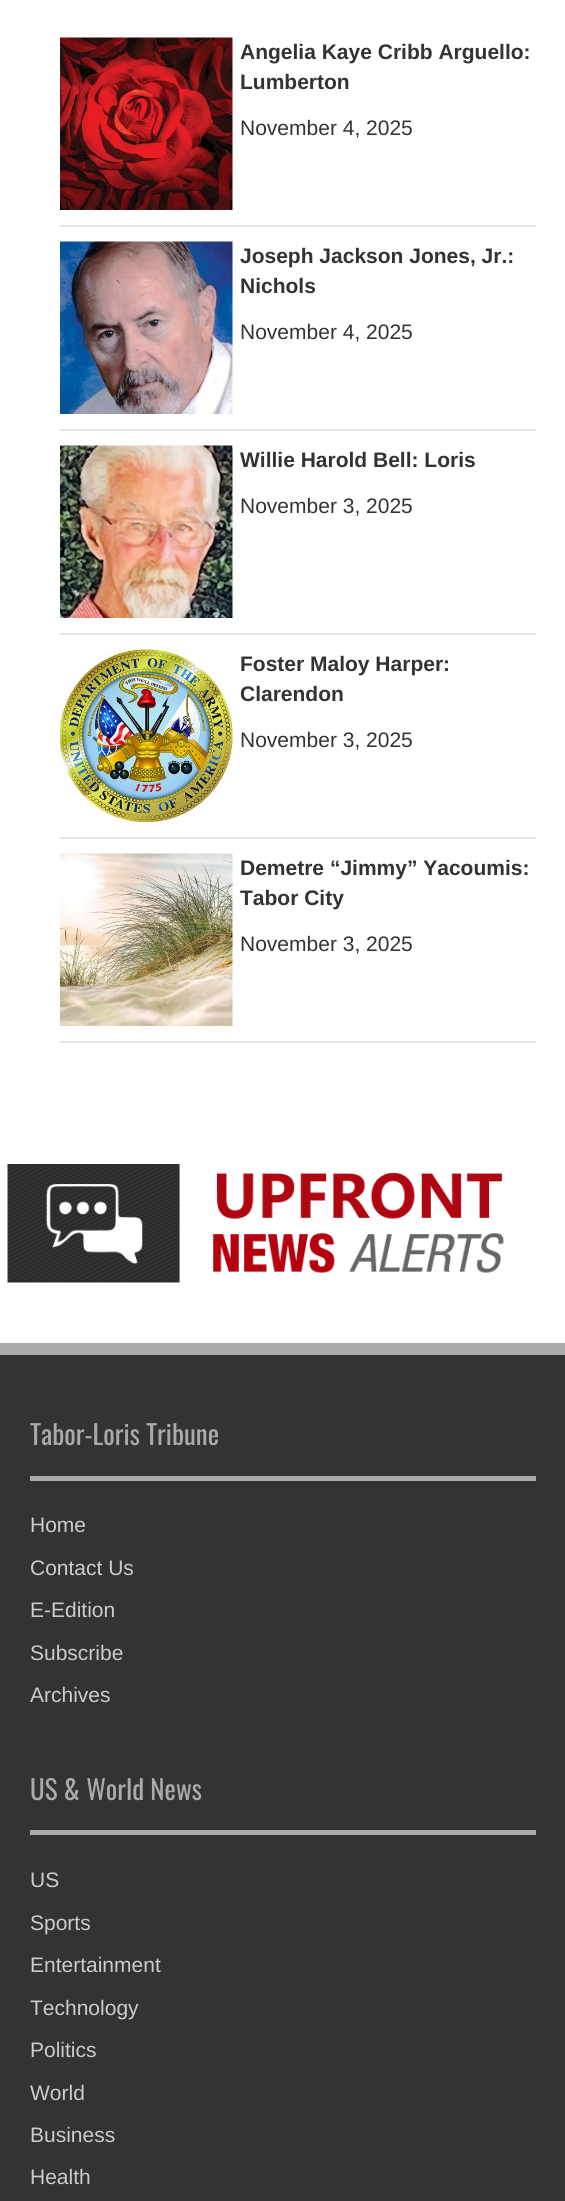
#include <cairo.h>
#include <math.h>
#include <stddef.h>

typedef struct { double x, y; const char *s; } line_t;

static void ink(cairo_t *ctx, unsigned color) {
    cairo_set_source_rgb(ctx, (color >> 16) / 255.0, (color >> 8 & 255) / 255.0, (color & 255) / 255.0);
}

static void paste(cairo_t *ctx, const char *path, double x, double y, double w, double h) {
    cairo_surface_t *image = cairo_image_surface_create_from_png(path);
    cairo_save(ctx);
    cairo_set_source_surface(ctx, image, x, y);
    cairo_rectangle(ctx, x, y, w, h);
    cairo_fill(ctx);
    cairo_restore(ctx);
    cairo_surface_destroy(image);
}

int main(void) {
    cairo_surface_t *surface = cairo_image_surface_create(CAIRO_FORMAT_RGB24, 565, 2201);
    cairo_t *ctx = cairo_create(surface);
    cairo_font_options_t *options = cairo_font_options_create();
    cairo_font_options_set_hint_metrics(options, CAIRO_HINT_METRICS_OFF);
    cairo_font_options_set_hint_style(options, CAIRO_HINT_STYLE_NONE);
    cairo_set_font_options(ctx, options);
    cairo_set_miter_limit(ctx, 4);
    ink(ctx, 0x333333);
    cairo_paint(ctx);
    ink(ctx, 0xFFFFFF);
    cairo_rectangle(ctx, 0, 0, 565, 1343);
    cairo_fill(ctx);
    ink(ctx, 0xE6E6E6);
    cairo_rectangle(ctx, 60, 225, 476, 2);
    cairo_fill(ctx);
    paste(ctx, "media/1.png", 60, 37, 173, 173);
    cairo_select_font_face(ctx, "Liberation Sans", CAIRO_FONT_SLANT_NORMAL, CAIRO_FONT_WEIGHT_BOLD);
    cairo_set_font_size(ctx, 21);
    ink(ctx, 0x333333);
    cairo_move_to(ctx, 240, 59);
    cairo_show_text(ctx, "Angelia Kaye Cribb Arguello:");
    cairo_move_to(ctx, 240, 89);
    cairo_show_text(ctx, "Lumberton");
    cairo_select_font_face(ctx, "Liberation Sans", CAIRO_FONT_SLANT_NORMAL, CAIRO_FONT_WEIGHT_NORMAL);
    cairo_move_to(ctx, 240, 135);
    cairo_show_text(ctx, "November 4, 2025");
    ink(ctx, 0xE6E6E6);
    cairo_rectangle(ctx, 60, 429, 476, 2);
    cairo_fill(ctx);
    paste(ctx, "media/2.png", 60, 241, 173, 173);
    cairo_select_font_face(ctx, "Liberation Sans", CAIRO_FONT_SLANT_NORMAL, CAIRO_FONT_WEIGHT_BOLD);
    ink(ctx, 0x333333);
    cairo_move_to(ctx, 240, 263);
    cairo_show_text(ctx, "Joseph Jackson Jones, Jr.:");
    cairo_move_to(ctx, 240, 293);
    cairo_show_text(ctx, "Nichols");
    cairo_select_font_face(ctx, "Liberation Sans", CAIRO_FONT_SLANT_NORMAL, CAIRO_FONT_WEIGHT_NORMAL);
    cairo_move_to(ctx, 240, 339);
    cairo_show_text(ctx, "November 4, 2025");
    ink(ctx, 0xE6E6E6);
    cairo_rectangle(ctx, 60, 633, 476, 2);
    cairo_fill(ctx);
    paste(ctx, "media/3.png", 60, 445, 173, 173);
    cairo_select_font_face(ctx, "Liberation Sans", CAIRO_FONT_SLANT_NORMAL, CAIRO_FONT_WEIGHT_BOLD);
    ink(ctx, 0x333333);
    cairo_move_to(ctx, 240, 467);
    cairo_show_text(ctx, "Willie Harold Bell: Loris");
    cairo_select_font_face(ctx, "Liberation Sans", CAIRO_FONT_SLANT_NORMAL, CAIRO_FONT_WEIGHT_NORMAL);
    cairo_move_to(ctx, 240, 513);
    cairo_show_text(ctx, "November 3, 2025");
    ink(ctx, 0xE6E6E6);
    cairo_rectangle(ctx, 60, 837, 476, 2);
    cairo_fill(ctx);
    paste(ctx, "media/4.png", 60, 649, 173, 173);
    cairo_select_font_face(ctx, "Liberation Sans", CAIRO_FONT_SLANT_NORMAL, CAIRO_FONT_WEIGHT_BOLD);
    ink(ctx, 0x333333);
    cairo_move_to(ctx, 240, 671);
    cairo_show_text(ctx, "Foster Maloy Harper:");
    cairo_move_to(ctx, 240, 701);
    cairo_show_text(ctx, "Clarendon");
    cairo_select_font_face(ctx, "Liberation Sans", CAIRO_FONT_SLANT_NORMAL, CAIRO_FONT_WEIGHT_NORMAL);
    cairo_move_to(ctx, 240, 747);
    cairo_show_text(ctx, "November 3, 2025");
    ink(ctx, 0xE6E6E6);
    cairo_rectangle(ctx, 60, 1041, 476, 2);
    cairo_fill(ctx);
    paste(ctx, "media/5.png", 60, 853, 173, 173);
    cairo_select_font_face(ctx, "Liberation Sans", CAIRO_FONT_SLANT_NORMAL, CAIRO_FONT_WEIGHT_BOLD);
    ink(ctx, 0x333333);
    cairo_move_to(ctx, 240, 875);
    cairo_show_text(ctx, "Demetre “Jimmy” Yacoumis:");
    cairo_move_to(ctx, 240, 905);
    cairo_show_text(ctx, "Tabor City");
    cairo_select_font_face(ctx, "Liberation Sans", CAIRO_FONT_SLANT_NORMAL, CAIRO_FONT_WEIGHT_NORMAL);
    cairo_move_to(ctx, 240, 951);
    cairo_show_text(ctx, "November 3, 2025");
    paste(ctx, "media/6.png", 7, 1164, 497, 119);
    ink(ctx, 0xAAAAAA);
    cairo_rectangle(ctx, 0, 1343, 565, 12);
    cairo_fill(ctx);
    cairo_rectangle(ctx, 30, 1476, 506, 5);
    cairo_fill(ctx);
    cairo_select_font_face(ctx, "Oswald", CAIRO_FONT_SLANT_NORMAL, CAIRO_FONT_WEIGHT_NORMAL);
    cairo_set_font_size(ctx, 27);
    cairo_move_to(ctx, 30, 1445);
    cairo_show_text(ctx, "Tabor-Loris Tribune");
    cairo_select_font_face(ctx, "Liberation Sans", CAIRO_FONT_SLANT_NORMAL, CAIRO_FONT_WEIGHT_NORMAL);
    cairo_set_font_size(ctx, 21);
    ink(ctx, 0xCCCCCC);
    {
        static const line_t items[] = {
            {30, 1532, "Home"},
            {30, 1575, "Contact Us"},
            {30, 1617, "E-Edition"},
            {30, 1660, "Subscribe"},
            {30, 1702, "Archives"},
        };
        for (size_t i = 0; i < sizeof items / sizeof *items; i++) {
            cairo_move_to(ctx, items[i].x, items[i].y);
            cairo_show_text(ctx, items[i].s);
        }
    }
    ink(ctx, 0xAAAAAA);
    cairo_rectangle(ctx, 30, 1830, 506, 5);
    cairo_fill(ctx);
    cairo_select_font_face(ctx, "Oswald", CAIRO_FONT_SLANT_NORMAL, CAIRO_FONT_WEIGHT_NORMAL);
    cairo_set_font_size(ctx, 27);
    cairo_move_to(ctx, 30, 1800);
    cairo_show_text(ctx, "US & World News");
    cairo_select_font_face(ctx, "Liberation Sans", CAIRO_FONT_SLANT_NORMAL, CAIRO_FONT_WEIGHT_NORMAL);
    cairo_set_font_size(ctx, 21);
    ink(ctx, 0xCCCCCC);
    {
        static const line_t items[] = {
            {30, 1887, "US"},
            {30, 1930, "Sports"},
            {30, 1972, "Entertainment"},
            {30, 2015, "Technology"},
            {30, 2057, "Politics"},
            {30, 2100, "World"},
            {30, 2142, "Business"},
            {30, 2184, "Health"},
        };
        for (size_t i = 0; i < sizeof items / sizeof *items; i++) {
            cairo_move_to(ctx, items[i].x, items[i].y);
            cairo_show_text(ctx, items[i].s);
        }
    }
    cairo_surface_write_to_png(surface, "image.png");
    cairo_font_options_destroy(options);
    cairo_destroy(ctx);
    cairo_surface_destroy(surface);
    return 0;
}
